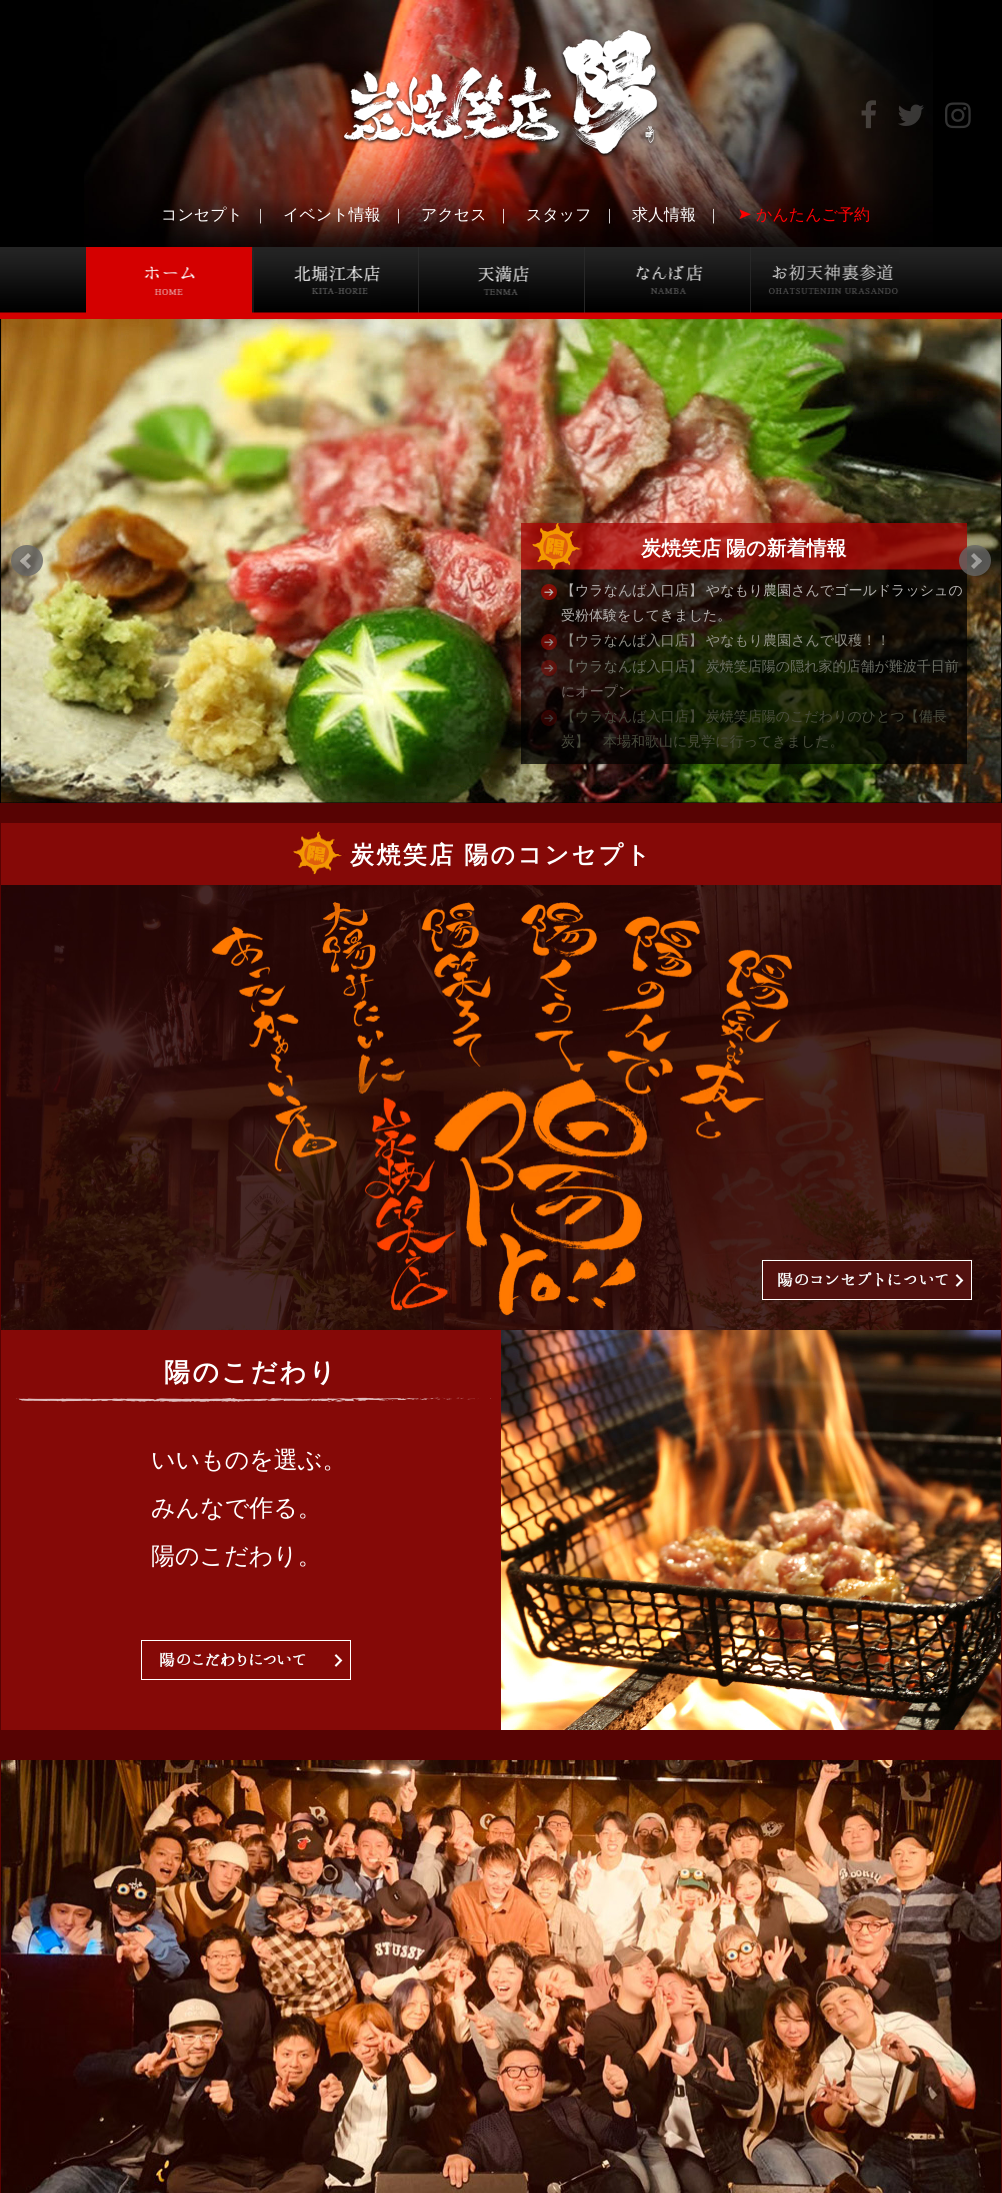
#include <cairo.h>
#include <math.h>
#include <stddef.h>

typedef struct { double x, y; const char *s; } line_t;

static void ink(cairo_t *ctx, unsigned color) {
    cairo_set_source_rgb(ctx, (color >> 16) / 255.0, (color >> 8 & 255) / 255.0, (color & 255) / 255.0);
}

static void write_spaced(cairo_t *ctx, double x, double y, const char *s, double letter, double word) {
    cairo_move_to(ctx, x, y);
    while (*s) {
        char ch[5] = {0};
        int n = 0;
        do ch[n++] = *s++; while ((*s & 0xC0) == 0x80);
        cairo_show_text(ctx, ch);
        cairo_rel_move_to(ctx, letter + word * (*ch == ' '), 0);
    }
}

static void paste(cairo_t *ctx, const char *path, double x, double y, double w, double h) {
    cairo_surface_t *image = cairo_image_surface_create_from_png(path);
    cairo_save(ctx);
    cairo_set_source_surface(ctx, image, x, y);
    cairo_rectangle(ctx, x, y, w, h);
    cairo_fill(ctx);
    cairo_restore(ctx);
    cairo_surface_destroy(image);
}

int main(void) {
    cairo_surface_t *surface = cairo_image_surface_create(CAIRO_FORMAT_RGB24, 1002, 2193);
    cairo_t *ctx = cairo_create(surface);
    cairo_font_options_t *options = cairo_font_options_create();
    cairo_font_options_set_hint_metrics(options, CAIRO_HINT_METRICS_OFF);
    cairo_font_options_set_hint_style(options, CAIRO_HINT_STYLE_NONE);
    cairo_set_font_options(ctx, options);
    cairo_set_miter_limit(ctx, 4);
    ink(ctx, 0x000000);
    cairo_paint(ctx);
    paste(ctx, "media/1.png", 84, 0, 849, 247);
    paste(ctx, "media/2.png", 342, 30, 318, 127);
    paste(ctx, "media/3.png", 861, 100, 15, 29);
    paste(ctx, "media/4.png", 898, 104, 26, 22);
    paste(ctx, "media/5.png", 945, 102, 26, 27);
    cairo_select_font_face(ctx, "WenQuanYi Zen Hei Medium", CAIRO_FONT_SLANT_NORMAL, CAIRO_FONT_WEIGHT_NORMAL);
    cairo_set_font_size(ctx, 16);
    ink(ctx, 0xFFFFFF);
    cairo_move_to(ctx, 161, 220);
    cairo_show_text(ctx, "コンセプト");
    cairo_select_font_face(ctx, "Liberation Serif", CAIRO_FONT_SLANT_NORMAL, CAIRO_FONT_WEIGHT_NORMAL);
    cairo_move_to(ctx, 259, 220);
    cairo_show_text(ctx, "|");
    cairo_select_font_face(ctx, "WenQuanYi Zen Hei Medium", CAIRO_FONT_SLANT_NORMAL, CAIRO_FONT_WEIGHT_NORMAL);
    cairo_move_to(ctx, 283, 220);
    cairo_show_text(ctx, "イベント情報");
    cairo_select_font_face(ctx, "Liberation Serif", CAIRO_FONT_SLANT_NORMAL, CAIRO_FONT_WEIGHT_NORMAL);
    cairo_move_to(ctx, 397, 220);
    cairo_show_text(ctx, "|");
    cairo_select_font_face(ctx, "WenQuanYi Zen Hei Medium", CAIRO_FONT_SLANT_NORMAL, CAIRO_FONT_WEIGHT_NORMAL);
    cairo_move_to(ctx, 421, 220);
    cairo_show_text(ctx, "アクセス");
    cairo_select_font_face(ctx, "Liberation Serif", CAIRO_FONT_SLANT_NORMAL, CAIRO_FONT_WEIGHT_NORMAL);
    cairo_move_to(ctx, 502, 220);
    cairo_show_text(ctx, "|");
    cairo_select_font_face(ctx, "WenQuanYi Zen Hei Medium", CAIRO_FONT_SLANT_NORMAL, CAIRO_FONT_WEIGHT_NORMAL);
    cairo_move_to(ctx, 526, 220);
    cairo_show_text(ctx, "スタッフ");
    cairo_select_font_face(ctx, "Liberation Serif", CAIRO_FONT_SLANT_NORMAL, CAIRO_FONT_WEIGHT_NORMAL);
    cairo_move_to(ctx, 608, 220);
    cairo_show_text(ctx, "|");
    cairo_select_font_face(ctx, "WenQuanYi Zen Hei Medium", CAIRO_FONT_SLANT_NORMAL, CAIRO_FONT_WEIGHT_NORMAL);
    cairo_move_to(ctx, 632, 220);
    cairo_show_text(ctx, "求人情報");
    cairo_select_font_face(ctx, "Liberation Serif", CAIRO_FONT_SLANT_NORMAL, CAIRO_FONT_WEIGHT_NORMAL);
    cairo_move_to(ctx, 712, 220);
    cairo_show_text(ctx, "|");
    paste(ctx, "media/6.png", 739, 209, 12, 10);
    cairo_select_font_face(ctx, "WenQuanYi Zen Hei Medium", CAIRO_FONT_SLANT_NORMAL, CAIRO_FONT_WEIGHT_NORMAL);
    ink(ctx, 0xFF0004);
    cairo_move_to(ctx, 756, 220);
    cairo_show_text(ctx, "かんたんご予約");
    paste(ctx, "media/7.png", 0, 247, 1002, 72);
    paste(ctx, "media/8.png", 86, 247, 166, 66);
    paste(ctx, "media/9.png", 252, 247, 129, 66);
    paste(ctx, "media/10.png", 418, 247, 111, 66);
    paste(ctx, "media/11.png", 584, 247, 119, 66);
    paste(ctx, "media/12.png", 750, 247, 149, 66);
    paste(ctx, "media/13.png", 1, 319, 1000, 484);
    paste(ctx, "media/14.png", 11, 545, 32, 31);
    paste(ctx, "media/16.png", 521, 523, 446, 241);
    paste(ctx, "media/15.png", 959, 545, 32, 31);
    cairo_select_font_face(ctx, "WenQuanYi Zen Hei", CAIRO_FONT_SLANT_NORMAL, CAIRO_FONT_WEIGHT_BOLD);
    cairo_set_font_size(ctx, 20);
    ink(ctx, 0xFFFFFF);
    write_spaced(ctx, 641, 555, "炭焼笑店 陽の新着情報", 0, -1);
    paste(ctx, "media/17.png", 541, 584, 16, 16);
    cairo_select_font_face(ctx, "WenQuanYi Zen Hei Medium", CAIRO_FONT_SLANT_NORMAL, CAIRO_FONT_WEIGHT_NORMAL);
    cairo_set_font_size(ctx, 14);
    ink(ctx, 0xB6B3B1);
    write_spaced(ctx, 561, 595, "【ウラなんば入口店】 やなもり農園さんでゴールドラッシュの", 0, -1);
    cairo_move_to(ctx, 561, 620);
    cairo_show_text(ctx, "受粉体験をしてきました。");
    paste(ctx, "media/18.png", 541, 634, 16, 16);
    ink(ctx, 0x929289);
    write_spaced(ctx, 561, 645, "【ウラなんば入口店】 やなもり農園さんで収穫！！", 0, -1);
    paste(ctx, "media/19.png", 541, 660, 16, 16);
    ink(ctx, 0x6A6D62);
    write_spaced(ctx, 561, 671, "【ウラなんば入口店】 炭焼笑店陽の隠れ家的店舗が難波千日前", 0, -1);
    ink(ctx, 0x736966);
    cairo_move_to(ctx, 561, 696);
    cairo_show_text(ctx, "にオープン");
    paste(ctx, "media/20.png", 541, 710, 16, 16);
    ink(ctx, 0x494C3D);
    write_spaced(ctx, 561, 721, "【ウラなんば入口店】 炭焼笑店陽のこだわりのひとつ【備長", 0, -1);
    cairo_move_to(ctx, 561, 746);
    cairo_show_text(ctx, "炭】　本場和歌山に見学に行ってきました。");
    ink(ctx, 0x570303);
    cairo_rectangle(ctx, 0, 803, 1002, 1390);
    cairo_fill(ctx);
    paste(ctx, "media/21.png", 1, 823, 1000, 62);
    cairo_select_font_face(ctx, "WenQuanYi Zen Hei", CAIRO_FONT_SLANT_NORMAL, CAIRO_FONT_WEIGHT_BOLD);
    cairo_set_font_size(ctx, 24);
    ink(ctx, 0xFFFFFF);
    write_spaced(ctx, 350, 863, "炭焼笑店 陽のコンセプト", 2.4, -1);
    paste(ctx, "media/22.png", 1, 885, 1000, 445);
    paste(ctx, "media/23.png", 762, 1260, 210, 40);
    paste(ctx, "media/24.png", 1, 1330, 500, 400);
    cairo_set_font_size(ctx, 26);
    write_spaced(ctx, 164, 1381, "陽のこだわり", 2.5, 0);
    cairo_select_font_face(ctx, "WenQuanYi Zen Hei Medium", CAIRO_FONT_SLANT_NORMAL, CAIRO_FONT_WEIGHT_NORMAL);
    cairo_set_font_size(ctx, 24);
    {
        static const line_t items[] = {
            {151, 1468, "いいものを選ぶ。"},
            {151, 1516, "みんなで作る。"},
            {151, 1564, "陽のこだわり。"},
        };
        for (size_t i = 0; i < sizeof items / sizeof *items; i++) {
            cairo_move_to(ctx, items[i].x, items[i].y);
            cairo_show_text(ctx, items[i].s);
        }
    }
    paste(ctx, "media/25.png", 141, 1640, 210, 40);
    paste(ctx, "media/26.png", 501, 1330, 500, 400);
    paste(ctx, "media/27.png", 1, 1760, 1000, 433);
    cairo_surface_write_to_png(surface, "image.png");
    cairo_font_options_destroy(options);
    cairo_destroy(ctx);
    cairo_surface_destroy(surface);
    return 0;
}
